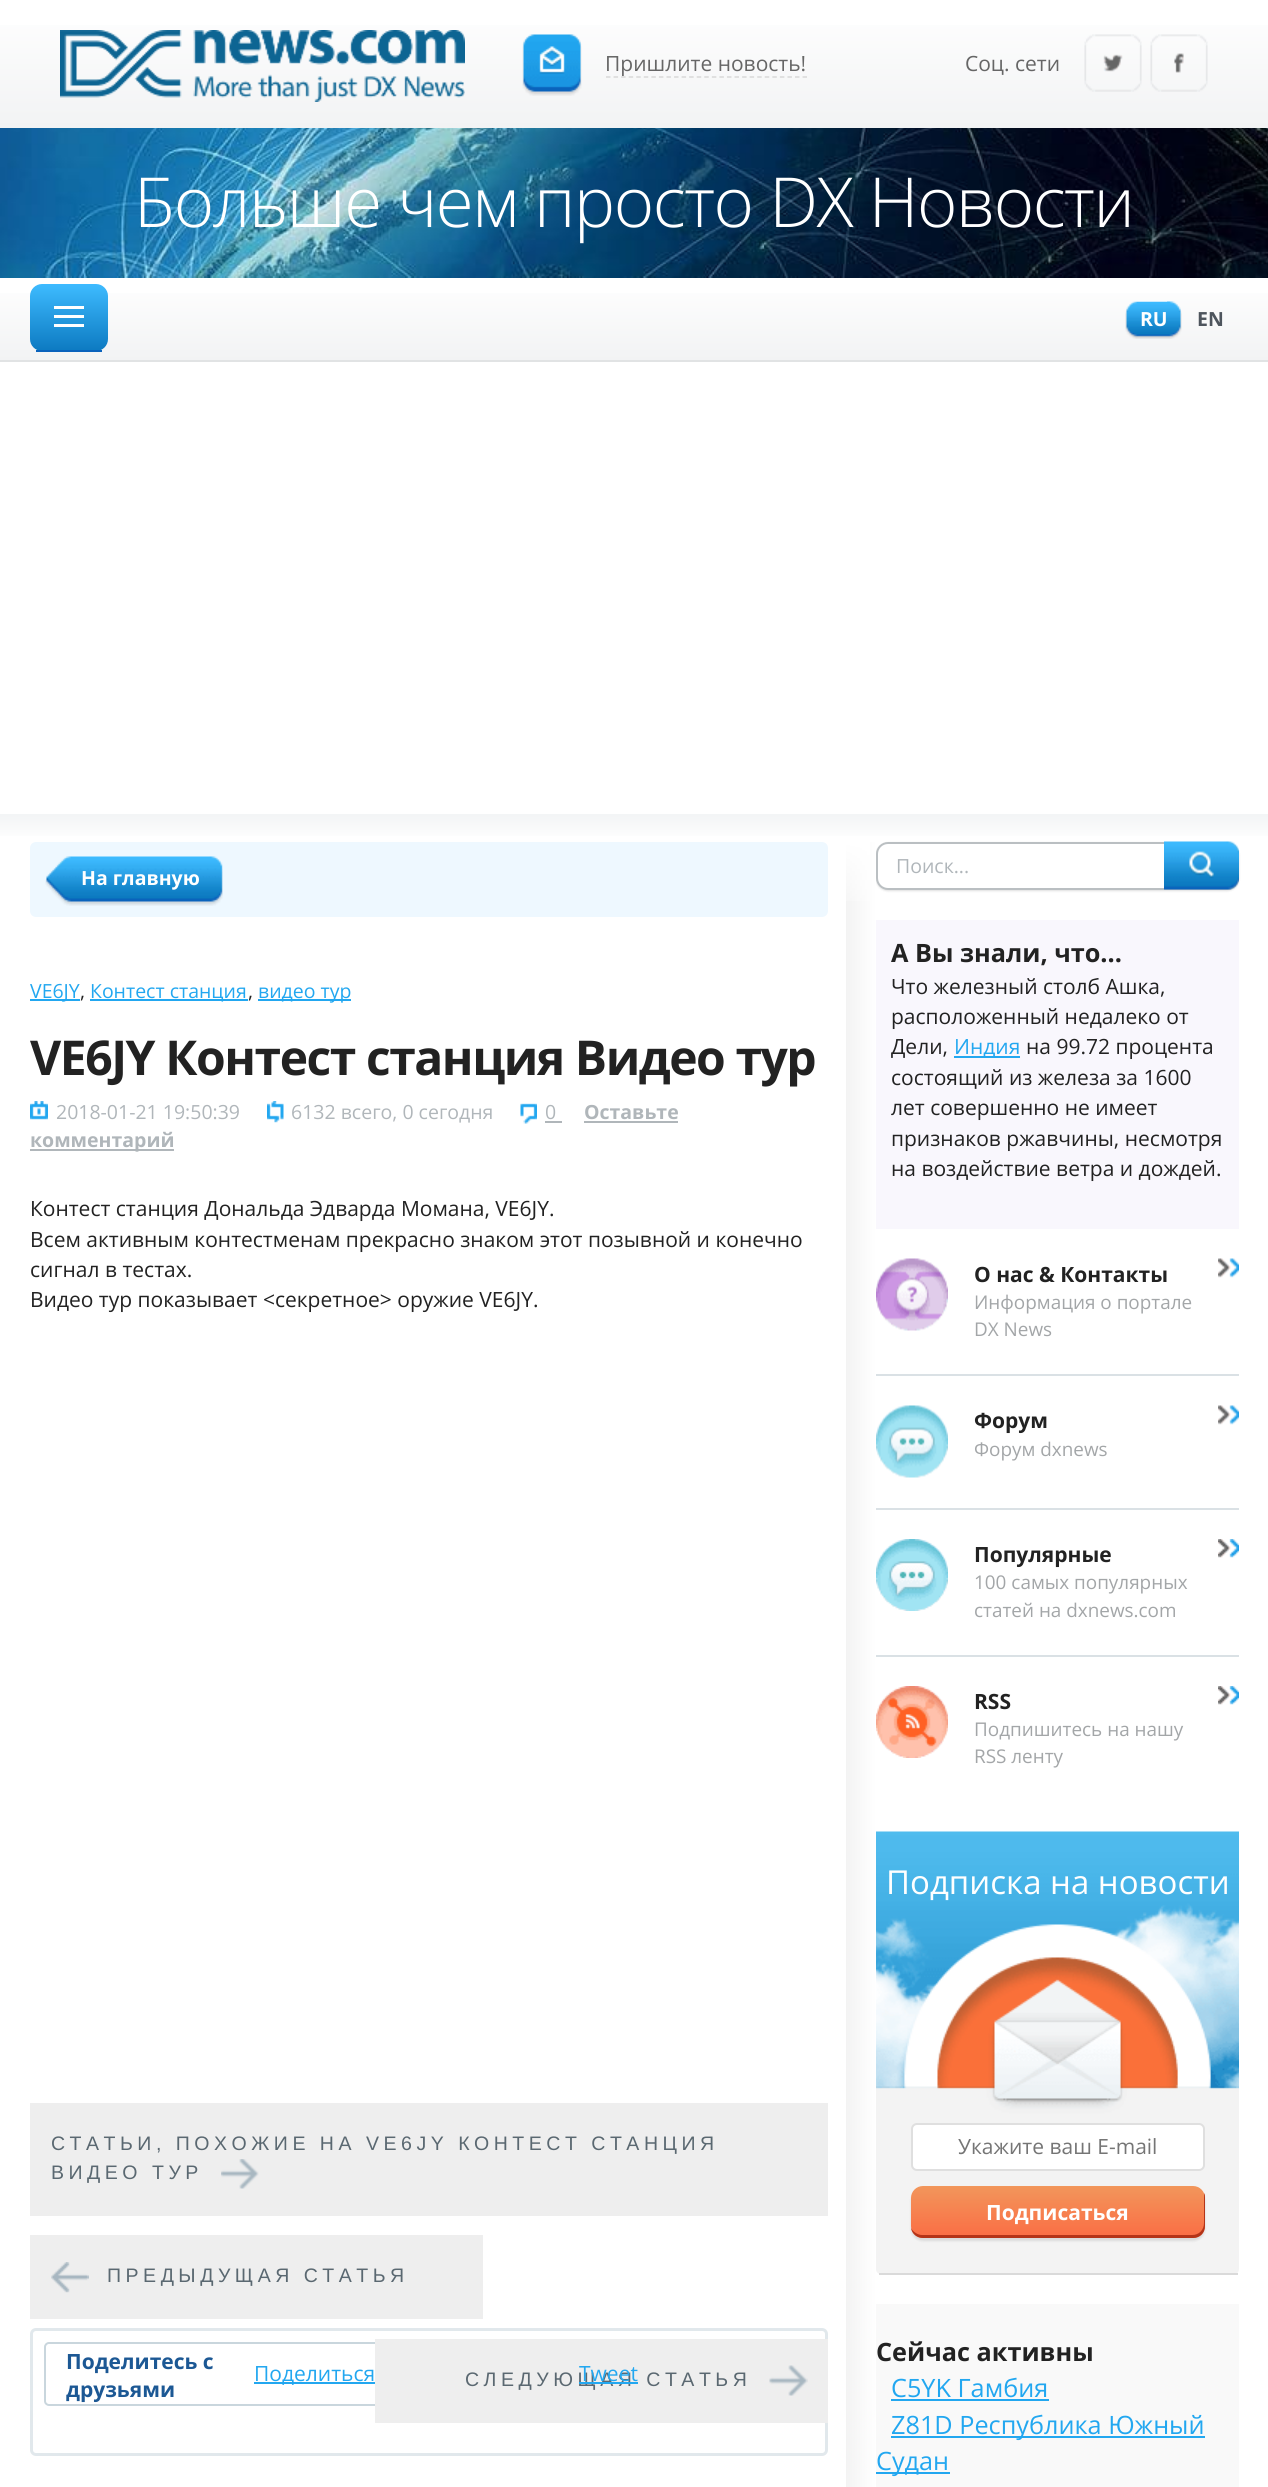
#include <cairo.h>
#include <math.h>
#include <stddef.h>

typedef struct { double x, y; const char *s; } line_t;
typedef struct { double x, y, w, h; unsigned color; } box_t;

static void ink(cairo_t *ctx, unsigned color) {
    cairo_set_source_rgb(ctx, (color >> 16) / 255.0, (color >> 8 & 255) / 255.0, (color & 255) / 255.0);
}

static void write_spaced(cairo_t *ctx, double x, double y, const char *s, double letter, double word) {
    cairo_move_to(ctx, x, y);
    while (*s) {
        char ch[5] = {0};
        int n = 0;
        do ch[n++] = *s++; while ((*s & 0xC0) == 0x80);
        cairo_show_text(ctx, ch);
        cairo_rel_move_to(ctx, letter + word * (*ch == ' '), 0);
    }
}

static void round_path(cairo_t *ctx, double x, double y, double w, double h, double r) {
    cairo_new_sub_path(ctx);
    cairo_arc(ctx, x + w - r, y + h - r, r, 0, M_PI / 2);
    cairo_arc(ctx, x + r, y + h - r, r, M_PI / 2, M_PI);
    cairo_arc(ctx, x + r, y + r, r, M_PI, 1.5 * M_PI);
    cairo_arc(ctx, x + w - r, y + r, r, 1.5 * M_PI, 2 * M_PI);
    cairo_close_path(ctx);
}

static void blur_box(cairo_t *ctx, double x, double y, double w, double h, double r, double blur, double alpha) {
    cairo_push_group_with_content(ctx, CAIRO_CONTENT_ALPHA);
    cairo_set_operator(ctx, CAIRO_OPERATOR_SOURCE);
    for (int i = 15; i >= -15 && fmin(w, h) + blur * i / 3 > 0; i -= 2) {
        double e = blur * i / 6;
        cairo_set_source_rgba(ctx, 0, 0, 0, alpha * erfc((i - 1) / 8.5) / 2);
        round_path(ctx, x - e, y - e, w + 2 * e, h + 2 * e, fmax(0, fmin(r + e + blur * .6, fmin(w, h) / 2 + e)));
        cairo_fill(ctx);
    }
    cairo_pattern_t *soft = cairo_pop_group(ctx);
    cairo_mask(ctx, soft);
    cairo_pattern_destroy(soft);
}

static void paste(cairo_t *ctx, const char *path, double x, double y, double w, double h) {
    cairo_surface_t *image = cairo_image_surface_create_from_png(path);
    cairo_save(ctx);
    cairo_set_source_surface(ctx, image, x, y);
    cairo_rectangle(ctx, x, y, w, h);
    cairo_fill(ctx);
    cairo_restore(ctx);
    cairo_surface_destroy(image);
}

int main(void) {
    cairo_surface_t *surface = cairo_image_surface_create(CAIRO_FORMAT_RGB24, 1268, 2487);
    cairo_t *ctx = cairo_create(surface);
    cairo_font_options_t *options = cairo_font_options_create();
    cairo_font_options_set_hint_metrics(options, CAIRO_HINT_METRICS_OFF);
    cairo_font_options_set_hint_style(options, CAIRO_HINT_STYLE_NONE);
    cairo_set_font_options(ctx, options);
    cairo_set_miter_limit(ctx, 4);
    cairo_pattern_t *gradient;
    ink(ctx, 0xFFFFFF);
    cairo_paint(ctx);
    gradient = cairo_pattern_create_linear(635, 0, 635, 128);
    cairo_pattern_add_color_stop_rgba(gradient, 0, 1, 1, 1, 1);
    cairo_pattern_add_color_stop_rgba(gradient, 1, 0.949, 0.953, 0.957, 1);
    cairo_set_source(ctx, gradient);
    cairo_pattern_destroy(gradient);
    cairo_rectangle(ctx, 0, 25, 1268, 103);
    cairo_fill(ctx);
    paste(ctx, "media/1.png", 60, 30, 405, 72);
    paste(ctx, "media/2.png", 522, 34, 60, 62);
    cairo_select_font_face(ctx, "Open Sans", CAIRO_FONT_SLANT_NORMAL, CAIRO_FONT_WEIGHT_NORMAL);
    cairo_set_font_size(ctx, 21);
    ink(ctx, 0x666666);
    cairo_move_to(ctx, 605, 71);
    cairo_show_text(ctx, "Пришлите новость!");
    cairo_new_path(ctx);
    cairo_move_to(ctx, 606, 77);
    cairo_line_to(ctx, 807, 77);
    ink(ctx, 0xD8D9D9);
    cairo_set_line_width(ctx, 1.5);
    cairo_set_dash(ctx, (double[]){4.5, 3.06}, 2, 0);
    cairo_stroke(ctx);
    ink(ctx, 0x666666);
    cairo_move_to(ctx, 965, 71);
    cairo_show_text(ctx, "Соц. сети");
    paste(ctx, "media/3.png", 1084, 34, 58, 58);
    paste(ctx, "media/4.png", 1150, 34, 58, 58);
    paste(ctx, "media/5.png", 0, 128, 1268, 150);
    cairo_select_font_face(ctx, "Open Sans Light", CAIRO_FONT_SLANT_NORMAL, CAIRO_FONT_WEIGHT_NORMAL);
    cairo_set_font_size(ctx, 69);
    ink(ctx, 0xFFFFFF);
    write_spaced(ctx, 134, 227, "Больше чем просто DX Новости", -1.4, 0);
    gradient = cairo_pattern_create_linear(635, 277, 635, 360);
    cairo_pattern_add_color_stop_rgba(gradient, 0, 1, 1, 1, 1);
    cairo_pattern_add_color_stop_rgba(gradient, 1, 0.949, 0.953, 0.957, 1);
    cairo_set_source(ctx, gradient);
    cairo_pattern_destroy(gradient);
    cairo_rectangle(ctx, 0, 293, 1268, 67);
    cairo_fill(ctx);
    ink(ctx, 0xE1E3E4);
    cairo_rectangle(ctx, 0, 360, 1268, 2);
    cairo_fill(ctx);
    cairo_save(ctx);
    round_path(ctx, 30, 284, 78, 67, 12);
    cairo_clip(ctx);
    gradient = cairo_pattern_create_linear(69, 284, 69, 350);
    cairo_pattern_add_color_stop_rgba(gradient, 0, 0.243, 0.733, 1, 1);
    cairo_pattern_add_color_stop_rgba(gradient, 1, 0.051, 0.482, 0.761, 1);
    cairo_set_source(ctx, gradient);
    cairo_pattern_destroy(gradient);
    cairo_new_path(ctx);
    cairo_move_to(ctx, 42, 284);
    cairo_line_to(ctx, 96, 284);
    cairo_curve_to(ctx, 102.5, 284, 108, 289.5, 108, 296);
    cairo_line_to(ctx, 108, 350);
    cairo_line_to(ctx, 30, 350);
    cairo_line_to(ctx, 30, 296);
    cairo_curve_to(ctx, 30, 289.5, 35.5, 284, 42, 284);
    cairo_close_path(ctx);
    cairo_fill(ctx);
    cairo_restore(ctx);
    {
        static const box_t items[] = {
            {36, 350, 66, 2, 0x0A63BC},
            {54, 315, 30, 3, 0xFFFFFF},
            {54, 306, 30, 3, 0xFFFFFF},
            {54, 324, 30, 3, 0xFFFFFF},
        };
        for (size_t i = 0; i < sizeof items / sizeof *items; i++) {
            ink(ctx, items[i].color);
            cairo_rectangle(ctx, items[i].x, items[i].y, items[i].w, items[i].h);
            cairo_fill(ctx);
        }
    }
    paste(ctx, "media/6.png", 1125, 301, 42, 38);
    cairo_select_font_face(ctx, "Open Sans", CAIRO_FONT_SLANT_NORMAL, CAIRO_FONT_WEIGHT_BOLD);
    cairo_set_font_size(ctx, 19.5);
    cairo_move_to(ctx, 1140, 326);
    cairo_show_text(ctx, "RU");
    paste(ctx, "media/7.png", 1167, 301, 15, 38);
    ink(ctx, 0x4E555D);
    cairo_move_to(ctx, 1197, 326);
    cairo_show_text(ctx, "EN");
    gradient = cairo_pattern_create_linear(635, 813, 635, 842);
    cairo_pattern_add_color_stop_rgba(gradient, 0, 0.949, 0.957, 0.961, 1);
    cairo_pattern_add_color_stop_rgba(gradient, 1, 1, 1, 1, 1);
    cairo_set_source(ctx, gradient);
    cairo_pattern_destroy(gradient);
    cairo_rectangle(ctx, 0, 814, 1268, 22);
    cairo_fill(ctx);
    ink(ctx, 0x000000);
    blur_box(ctx, 876, 843, 363, 48, 12, 1, 0.13);
    gradient = cairo_pattern_create_linear(846, 2208, 876, 2208);
    cairo_pattern_add_color_stop_rgba(gradient, 0, 0.953, 0.953, 0.953, 1);
    cairo_pattern_add_color_stop_rgba(gradient, 1, 1, 1, 1, 1);
    cairo_set_source(ctx, gradient);
    cairo_pattern_destroy(gradient);
    cairo_rectangle(ctx, 846, 842, 30, 1645);
    cairo_fill(ctx);
    gradient = cairo_pattern_create_linear(861, 842, 861, 917);
    cairo_pattern_add_color_stop_rgba(gradient, 0, 1, 1, 1, 1);
    cairo_pattern_add_color_stop_rgba(gradient, 1, 1, 1, 1, 0);
    cairo_set_source(ctx, gradient);
    cairo_pattern_destroy(gradient);
    cairo_rectangle(ctx, 846, 842, 24, 59);
    cairo_fill(ctx);
    ink(ctx, 0xEEF8FF);
    round_path(ctx, 30, 842, 798, 75, 6);
    cairo_fill(ctx);
    paste(ctx, "media/8.png", 45, 856, 36, 50);
    paste(ctx, "media/9.png", 81, 856, 142, 50);
    ink(ctx, 0xFFFFFF);
    cairo_move_to(ctx, 81, 885);
    cairo_show_text(ctx, "На главную");
    ink(ctx, 0x22A7F0);
    cairo_rectangle(ctx, 30, 999, 50, 2);
    cairo_fill(ctx);
    cairo_select_font_face(ctx, "Open Sans", CAIRO_FONT_SLANT_NORMAL, CAIRO_FONT_WEIGHT_NORMAL);
    cairo_move_to(ctx, 30, 998);
    cairo_show_text(ctx, "VE6JY");
    ink(ctx, 0x222222);
    cairo_move_to(ctx, 80, 998);
    cairo_show_text(ctx, ",");
    ink(ctx, 0x22A7F0);
    cairo_rectangle(ctx, 90, 999, 158, 2);
    cairo_fill(ctx);
    cairo_move_to(ctx, 90, 998);
    cairo_show_text(ctx, "Контест станция");
    ink(ctx, 0x222222);
    cairo_move_to(ctx, 248, 998);
    cairo_show_text(ctx, ",");
    ink(ctx, 0x22A7F0);
    cairo_rectangle(ctx, 258, 999, 93, 2);
    cairo_fill(ctx);
    cairo_move_to(ctx, 258, 998);
    cairo_show_text(ctx, "видео тур");
    cairo_select_font_face(ctx, "Open Sans", CAIRO_FONT_SLANT_NORMAL, CAIRO_FONT_WEIGHT_BOLD);
    cairo_set_font_size(ctx, 48);
    ink(ctx, 0x222222);
    write_spaced(ctx, 30, 1075, "VE6JY Контест станция Видео тур", -1.45, 0);
    paste(ctx, "media/10.png", 30, 1101, 18, 19);
    cairo_select_font_face(ctx, "Open Sans", CAIRO_FONT_SLANT_NORMAL, CAIRO_FONT_WEIGHT_NORMAL);
    cairo_set_font_size(ctx, 19.5);
    ink(ctx, 0xB0B6BA);
    cairo_move_to(ctx, 56, 1119);
    cairo_show_text(ctx, "2018-01-21 19:50:39");
    paste(ctx, "media/11.png", 267, 1101, 17, 22);
    cairo_move_to(ctx, 291, 1119);
    cairo_show_text(ctx, "6132 всего, 0 сегодня");
    paste(ctx, "media/12.png", 520, 1103, 17, 21);
    cairo_move_to(ctx, 545, 1119);
    cairo_show_text(ctx, "0");
    cairo_rectangle(ctx, 545, 1121, 17, 2);
    cairo_fill(ctx);
    cairo_select_font_face(ctx, "Open Sans", CAIRO_FONT_SLANT_NORMAL, CAIRO_FONT_WEIGHT_BOLD);
    cairo_move_to(ctx, 584, 1119);
    cairo_show_text(ctx, "Оставьте");
    cairo_rectangle(ctx, 584, 1121, 94, 2);
    cairo_fill(ctx);
    cairo_rectangle(ctx, 30, 1149, 144, 2);
    cairo_fill(ctx);
    cairo_move_to(ctx, 30, 1147);
    cairo_show_text(ctx, "комментарий");
    cairo_select_font_face(ctx, "Open Sans", CAIRO_FONT_SLANT_NORMAL, CAIRO_FONT_WEIGHT_NORMAL);
    cairo_set_font_size(ctx, 21);
    ink(ctx, 0x222222);
    {
        static const line_t items[] = {
            {30, 1216, "Контест станция Дональда Эдварда Момана, VE6JY."},
            {30, 1247, "Всем активным контестменам прекрасно знаком этот позывной и конечно"},
            {30, 1277, "сигнал в тестах."},
            {30, 1307, "Видео тур показывает <секретное> оружие VE6JY."},
        };
        for (size_t i = 0; i < sizeof items / sizeof *items; i++) {
            cairo_move_to(ctx, items[i].x, items[i].y);
            cairo_show_text(ctx, items[i].s);
        }
    }
    ink(ctx, 0xEEEEEE);
    cairo_rectangle(ctx, 30, 2103, 798, 113);
    cairo_fill(ctx);
    cairo_select_font_face(ctx, "Liberation Sans", CAIRO_FONT_SLANT_NORMAL, CAIRO_FONT_WEIGHT_NORMAL);
    cairo_set_font_size(ctx, 19.55);
    ink(ctx, 0x5A6871);
    write_spaced(ctx, 51, 2150, "CТАТЬИ, ПОХОЖИЕ НА VE6JY КОНТЕСТ СТАНЦИЯ", 4.5, 0);
    write_spaced(ctx, 51, 2179, "ВИДЕО ТУР", 4.5, 0);
    paste(ctx, "media/13.png", 221, 2159, 38, 30);
    ink(ctx, 0xEEEEEE);
    cairo_rectangle(ctx, 30, 2235, 453, 84);
    cairo_fill(ctx);
    paste(ctx, "media/14.png", 51, 2262, 38, 31);
    ink(ctx, 0x5A6871);
    write_spaced(ctx, 107, 2282, "ПРЕДЫДУЩАЯ СТАТЬЯ", 4.5, 0);
    round_path(ctx, 31.5, 2329.5, 795, 125, 4.5);
    ink(ctx, 0xE1E8EC);
    cairo_set_line_width(ctx, 3);
    cairo_set_dash(ctx, NULL, 0, 0);
    cairo_stroke(ctx);
    round_path(ctx, 45, 2343, 764, 62, 4);
    ink(ctx, 0xC9D6DD);
    cairo_set_line_width(ctx, 2);
    cairo_stroke(ctx);
    ink(ctx, 0xEEEEEE);
    cairo_rectangle(ctx, 375, 2339, 453, 84);
    cairo_fill(ctx);
    ink(ctx, 0x5A6871);
    write_spaced(ctx, 465, 2386, "СЛЕДУЮЩАЯ СТАТЬЯ", 4.5, 0);
    paste(ctx, "media/15.png", 769, 2365, 39, 31);
    cairo_select_font_face(ctx, "Open Sans", CAIRO_FONT_SLANT_NORMAL, CAIRO_FONT_WEIGHT_BOLD);
    cairo_set_font_size(ctx, 21);
    ink(ctx, 0x1C5894);
    cairo_move_to(ctx, 66, 2369);
    cairo_show_text(ctx, "Поделитесь с");
    cairo_move_to(ctx, 66, 2397);
    cairo_show_text(ctx, "друзьями");
    ink(ctx, 0x22A7F0);
    cairo_rectangle(ctx, 254, 2382, 121, 2);
    cairo_fill(ctx);
    cairo_select_font_face(ctx, "Open Sans", CAIRO_FONT_SLANT_NORMAL, CAIRO_FONT_WEIGHT_NORMAL);
    cairo_move_to(ctx, 254, 2381);
    cairo_show_text(ctx, "Поделиться");
    cairo_move_to(ctx, 579, 2381);
    cairo_show_text(ctx, "Tweet");
    cairo_rectangle(ctx, 579, 2382, 59, 2);
    cairo_fill(ctx);
    ink(ctx, 0xFFFFFF);
    round_path(ctx, 877, 843, 361, 46, 11);
    cairo_fill_preserve(ctx);
    ink(ctx, 0xBABFC2);
    cairo_stroke(ctx);
    cairo_set_font_size(ctx, 19.5);
    ink(ctx, 0xB0B6BA);
    cairo_move_to(ctx, 896, 873);
    cairo_show_text(ctx, "Поиск...");
    paste(ctx, "media/16.png", 1164, 841, 75, 49);
    ink(ctx, 0xF9F7FD);
    cairo_rectangle(ctx, 876, 920, 363, 309);
    cairo_fill(ctx);
    cairo_select_font_face(ctx, "Open Sans", CAIRO_FONT_SLANT_NORMAL, CAIRO_FONT_WEIGHT_BOLD);
    cairo_set_font_size(ctx, 25.25);
    ink(ctx, 0x222222);
    cairo_move_to(ctx, 891, 962);
    cairo_show_text(ctx, "А Вы знали, что...");
    cairo_select_font_face(ctx, "Open Sans", CAIRO_FONT_SLANT_NORMAL, CAIRO_FONT_WEIGHT_NORMAL);
    cairo_set_font_size(ctx, 21);
    {
        static const line_t items[] = {
            {891, 994, "Что железный столб Ашка,"},
            {891, 1024, "расположенный недалеко от"},
            {891, 1054, "Дели,"},
        };
        for (size_t i = 0; i < sizeof items / sizeof *items; i++) {
            cairo_move_to(ctx, items[i].x, items[i].y);
            cairo_show_text(ctx, items[i].s);
        }
    }
    ink(ctx, 0x22A7F0);
    cairo_rectangle(ctx, 954, 1056, 66, 2);
    cairo_fill(ctx);
    cairo_move_to(ctx, 954, 1054);
    cairo_show_text(ctx, "Индия");
    ink(ctx, 0x222222);
    {
        static const line_t items[] = {
            {1026, 1054, "на 99.72 процента"},
            {891, 1085, "состоящий из железа за 1600"},
            {891, 1115, "лет совершенно не имеет"},
            {891, 1146, "признаков ржавчины, несмотря"},
            {891, 1176, "на воздействие ветра и дождей."},
        };
        for (size_t i = 0; i < sizeof items / sizeof *items; i++) {
            cairo_move_to(ctx, items[i].x, items[i].y);
            cairo_show_text(ctx, items[i].s);
        }
    }
    paste(ctx, "media/17.png", 876, 1258, 72, 73);
    cairo_select_font_face(ctx, "Open Sans", CAIRO_FONT_SLANT_NORMAL, CAIRO_FONT_WEIGHT_BOLD);
    cairo_move_to(ctx, 974, 1282);
    cairo_show_text(ctx, "О нас & Контакты");
    paste(ctx, "media/18.png", 1218, 1258, 21, 20);
    cairo_select_font_face(ctx, "Open Sans", CAIRO_FONT_SLANT_NORMAL, CAIRO_FONT_WEIGHT_NORMAL);
    cairo_set_font_size(ctx, 18.9);
    ink(ctx, 0xA3A6A8);
    cairo_move_to(ctx, 974, 1309);
    cairo_show_text(ctx, "Информация о портале");
    cairo_move_to(ctx, 974, 1336);
    cairo_show_text(ctx, "DX News");
    ink(ctx, 0xDAE1E5);
    cairo_rectangle(ctx, 876, 1374, 363, 2);
    cairo_fill(ctx);
    paste(ctx, "media/19.png", 876, 1405, 72, 73);
    cairo_select_font_face(ctx, "Open Sans", CAIRO_FONT_SLANT_NORMAL, CAIRO_FONT_WEIGHT_BOLD);
    cairo_set_font_size(ctx, 21);
    ink(ctx, 0x222222);
    cairo_move_to(ctx, 974, 1428);
    cairo_show_text(ctx, "Форум");
    paste(ctx, "media/18.png", 1218, 1405, 21, 20);
    cairo_select_font_face(ctx, "Open Sans", CAIRO_FONT_SLANT_NORMAL, CAIRO_FONT_WEIGHT_NORMAL);
    cairo_set_font_size(ctx, 18.9);
    ink(ctx, 0xA3A6A8);
    cairo_move_to(ctx, 974, 1456);
    cairo_show_text(ctx, "Форум dxnews");
    ink(ctx, 0xDAE1E5);
    cairo_rectangle(ctx, 876, 1508, 363, 2);
    cairo_fill(ctx);
    paste(ctx, "media/20.png", 876, 1539, 72, 72);
    cairo_select_font_face(ctx, "Open Sans", CAIRO_FONT_SLANT_NORMAL, CAIRO_FONT_WEIGHT_BOLD);
    cairo_set_font_size(ctx, 21);
    ink(ctx, 0x222222);
    cairo_move_to(ctx, 974, 1562);
    cairo_show_text(ctx, "Популярные");
    paste(ctx, "media/21.png", 1218, 1539, 21, 19);
    cairo_select_font_face(ctx, "Open Sans", CAIRO_FONT_SLANT_NORMAL, CAIRO_FONT_WEIGHT_NORMAL);
    cairo_set_font_size(ctx, 18.9);
    ink(ctx, 0xA3A6A8);
    cairo_move_to(ctx, 974, 1589);
    cairo_show_text(ctx, "100 самых популярных");
    cairo_move_to(ctx, 974, 1617);
    cairo_show_text(ctx, "статей на dxnews.com");
    ink(ctx, 0xDAE1E5);
    cairo_rectangle(ctx, 876, 1655, 363, 2);
    cairo_fill(ctx);
    paste(ctx, "media/22.png", 876, 1686, 72, 72);
    cairo_select_font_face(ctx, "Open Sans", CAIRO_FONT_SLANT_NORMAL, CAIRO_FONT_WEIGHT_BOLD);
    cairo_set_font_size(ctx, 21);
    ink(ctx, 0x222222);
    cairo_move_to(ctx, 974, 1709);
    cairo_show_text(ctx, "RSS");
    paste(ctx, "media/21.png", 1218, 1686, 21, 19);
    cairo_select_font_face(ctx, "Open Sans", CAIRO_FONT_SLANT_NORMAL, CAIRO_FONT_WEIGHT_NORMAL);
    cairo_set_font_size(ctx, 18.9);
    ink(ctx, 0xA3A6A8);
    cairo_move_to(ctx, 974, 1736);
    cairo_show_text(ctx, "Подпишитесь на нашу");
    cairo_move_to(ctx, 974, 1763);
    cairo_show_text(ctx, "RSS ленту");
    paste(ctx, "media/23.png", 876, 1831, 363, 284);
    cairo_set_font_size(ctx, 33);
    ink(ctx, 0xFFFFFF);
    cairo_move_to(ctx, 886, 1894);
    cairo_show_text(ctx, "Подписка на новости");
    ink(ctx, 0xF3F3F3);
    cairo_new_path(ctx);
    cairo_move_to(ctx, 876, 2115);
    cairo_line_to(ctx, 1239, 2115);
    cairo_line_to(ctx, 1239, 2269);
    cairo_curve_to(ctx, 1239, 2272, 1237, 2274, 1234, 2274);
    cairo_line_to(ctx, 881, 2274);
    cairo_curve_to(ctx, 878, 2274, 876, 2272, 876, 2269);
    cairo_close_path(ctx);
    cairo_fill(ctx);
    ink(ctx, 0xDADADA);
    cairo_rectangle(ctx, 879, 2273, 359, 2);
    cairo_fill(ctx);
    ink(ctx, 0xFFFFFF);
    round_path(ctx, 912, 2124, 292, 46, 5);
    cairo_fill_preserve(ctx);
    ink(ctx, 0xDFDFDF);
    cairo_stroke(ctx);
    cairo_set_font_size(ctx, 21);
    ink(ctx, 0x757575);
    cairo_move_to(ctx, 958, 2154);
    cairo_show_text(ctx, "Укажите ваш E-mail");
    ink(ctx, 0x000000);
    blur_box(ctx, 911, 2189, 294, 52, 12, 1, 0.1);
    gradient = cairo_pattern_create_linear(1058, 2186, 1058, 2238);
    cairo_pattern_add_color_stop_rgba(gradient, 0, 0.949, 0.588, 0.357, 1);
    cairo_pattern_add_color_stop_rgba(gradient, 1, 0.984, 0.427, 0.267, 1);
    cairo_set_source(ctx, gradient);
    cairo_pattern_destroy(gradient);
    round_path(ctx, 911, 2186, 294, 52, 12);
    cairo_fill(ctx);
    ink(ctx, 0xB43418);
    cairo_new_path(ctx);
    cairo_move_to(ctx, 911, 2228);
    cairo_curve_to(ctx, 912, 2234, 917, 2238, 923, 2238);
    cairo_line_to(ctx, 1193, 2238);
    cairo_curve_to(ctx, 1200, 2238, 1205, 2233, 1205, 2226);
    cairo_line_to(ctx, 1205, 2198);
    cairo_curve_to(ctx, 1205, 2196, 1205, 2195, 1204, 2193);
    cairo_line_to(ctx, 1204, 2223);
    cairo_curve_to(ctx, 1204, 2230, 1199, 2235, 1192, 2235);
    cairo_line_to(ctx, 922, 2235);
    cairo_curve_to(ctx, 918, 2235, 913, 2232, 911, 2228);
    cairo_close_path(ctx);
    cairo_fill(ctx);
    cairo_select_font_face(ctx, "Open Sans", CAIRO_FONT_SLANT_NORMAL, CAIRO_FONT_WEIGHT_BOLD);
    ink(ctx, 0xFFFFFF);
    cairo_move_to(ctx, 986, 2220);
    cairo_show_text(ctx, "Подписаться");
    ink(ctx, 0xF9F9F9);
    cairo_rectangle(ctx, 876, 2304, 363, 183);
    cairo_fill(ctx);
    cairo_set_font_size(ctx, 25.25);
    ink(ctx, 0x222222);
    cairo_move_to(ctx, 876, 2361);
    cairo_show_text(ctx, "Сейчас активны");
    cairo_select_font_face(ctx, "Open Sans", CAIRO_FONT_SLANT_NORMAL, CAIRO_FONT_WEIGHT_NORMAL);
    ink(ctx, 0x22A7F0);
    cairo_move_to(ctx, 891, 2397);
    cairo_show_text(ctx, "C5YK Гамбия");
    cairo_rectangle(ctx, 891, 2399, 158, 2);
    cairo_fill(ctx);
    cairo_rectangle(ctx, 891, 2436, 314, 2);
    cairo_fill(ctx);
    cairo_move_to(ctx, 891, 2434);
    cairo_show_text(ctx, "Z81D Республика Южный");
    cairo_rectangle(ctx, 876, 2472, 74, 2);
    cairo_fill(ctx);
    cairo_move_to(ctx, 876, 2470);
    cairo_show_text(ctx, "Судан");
    cairo_surface_write_to_png(surface, "image.png");
    cairo_font_options_destroy(options);
    cairo_destroy(ctx);
    cairo_surface_destroy(surface);
    return 0;
}
